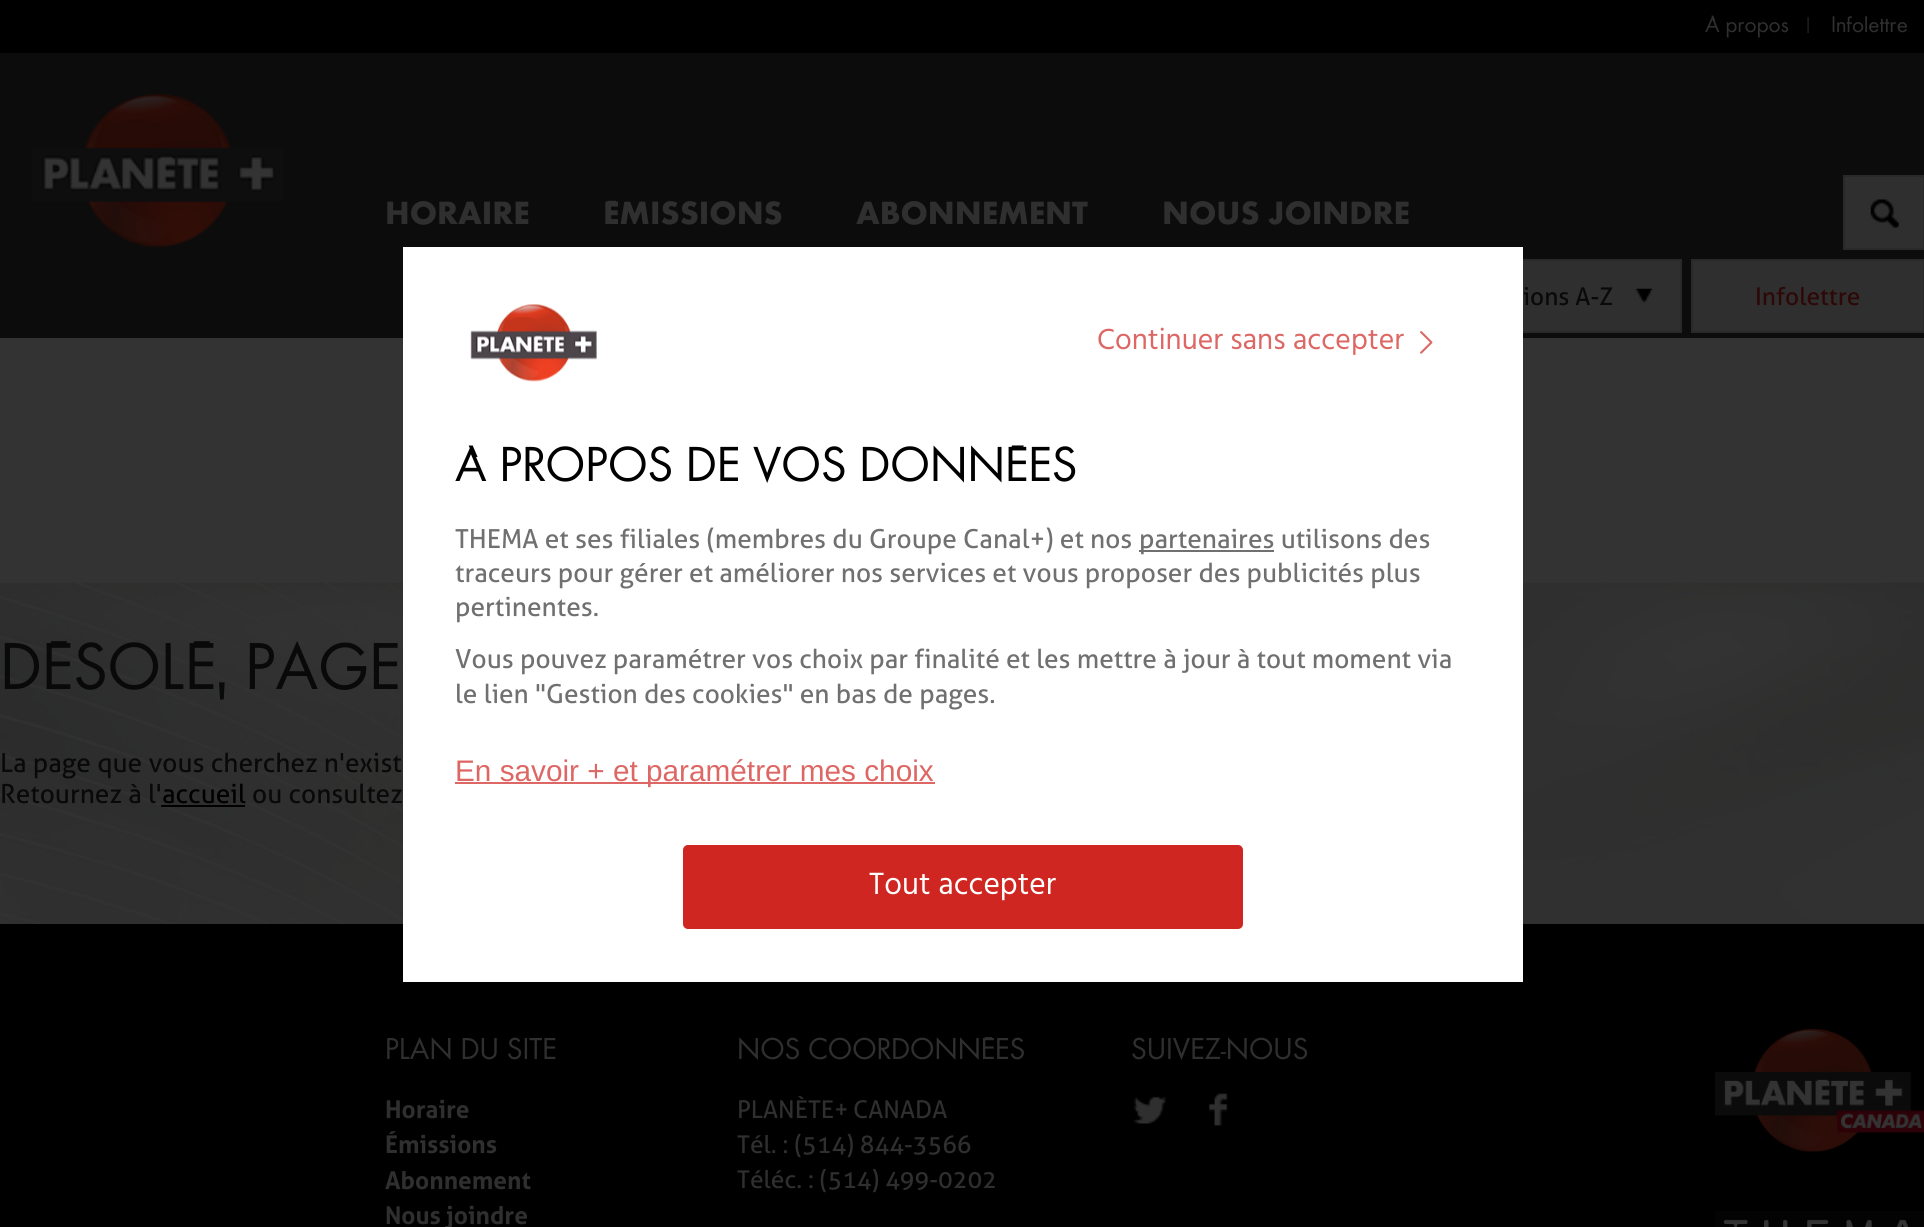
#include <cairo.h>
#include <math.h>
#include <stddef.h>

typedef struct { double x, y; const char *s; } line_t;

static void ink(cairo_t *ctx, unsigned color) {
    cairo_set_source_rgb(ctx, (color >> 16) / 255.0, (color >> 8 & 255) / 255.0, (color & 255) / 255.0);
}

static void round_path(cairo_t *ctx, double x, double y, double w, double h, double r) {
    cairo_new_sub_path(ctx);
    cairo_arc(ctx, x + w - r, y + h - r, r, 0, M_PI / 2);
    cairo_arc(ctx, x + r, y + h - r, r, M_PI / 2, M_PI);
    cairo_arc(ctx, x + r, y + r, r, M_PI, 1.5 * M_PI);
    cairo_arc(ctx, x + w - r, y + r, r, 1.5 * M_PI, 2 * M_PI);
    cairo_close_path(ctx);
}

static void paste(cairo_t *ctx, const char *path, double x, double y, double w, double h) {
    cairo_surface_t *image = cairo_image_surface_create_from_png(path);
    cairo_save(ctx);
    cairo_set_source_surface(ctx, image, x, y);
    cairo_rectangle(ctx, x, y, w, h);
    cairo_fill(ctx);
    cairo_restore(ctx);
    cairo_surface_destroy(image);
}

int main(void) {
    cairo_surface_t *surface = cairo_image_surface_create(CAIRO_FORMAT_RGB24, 1924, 1227);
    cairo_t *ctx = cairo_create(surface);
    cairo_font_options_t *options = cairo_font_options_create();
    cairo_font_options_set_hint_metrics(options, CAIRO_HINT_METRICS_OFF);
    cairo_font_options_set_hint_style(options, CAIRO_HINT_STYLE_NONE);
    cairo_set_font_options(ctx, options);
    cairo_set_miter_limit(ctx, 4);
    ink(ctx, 0x333333);
    cairo_paint(ctx);
    ink(ctx, 0x000000);
    cairo_rectangle(ctx, 0, 0, 1924, 53);
    cairo_fill(ctx);
    cairo_select_font_face(ctx, "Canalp", CAIRO_FONT_SLANT_NORMAL, CAIRO_FONT_WEIGHT_NORMAL);
    cairo_set_font_size(ctx, 21);
    ink(ctx, 0x2F2F2F);
    cairo_move_to(ctx, 1705, 32);
    cairo_show_text(ctx, "À propos");
    ink(ctx, 0x1A1A1A);
    cairo_move_to(ctx, 1806, 33);
    cairo_show_text(ctx, "|");
    ink(ctx, 0x2F2F2F);
    cairo_move_to(ctx, 1831, 32);
    cairo_show_text(ctx, "Infolettre");
    ink(ctx, 0x0C0C0C);
    cairo_rectangle(ctx, 0, 53, 1924, 285);
    cairo_fill(ctx);
    paste(ctx, "media/1.png", 31, 94, 253, 154);
    cairo_select_font_face(ctx, "Canalp", CAIRO_FONT_SLANT_NORMAL, CAIRO_FONT_WEIGHT_BOLD);
    cairo_set_font_size(ctx, 29.75);
    ink(ctx, 0x2F2F2F);
    {
        static const line_t items[] = {
            {385, 224, "HORAIRE"},
            {603, 224, "ÉMISSIONS"},
            {856, 224, "ABONNEMENT"},
            {1162, 224, "NOUS JOINDRE"},
        };
        for (size_t i = 0; i < sizeof items / sizeof *items; i++) {
            cairo_move_to(ctx, items[i].x, items[i].y);
            cairo_show_text(ctx, items[i].s);
        }
    }
    cairo_rectangle(ctx, 1845, 177, 78, 71);
    cairo_fill(ctx);
    paste(ctx, "media/2.png", 1870, 199, 29, 29);
    cairo_rectangle(ctx, 1844, 176, 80, 73);
    ink(ctx, 0x292929);
    cairo_stroke(ctx);
    ink(ctx, 0x2F2F2F);
    cairo_rectangle(ctx, 1523, 261, 157, 70);
    cairo_fill(ctx);
    cairo_rectangle(ctx, 1431, 260, 250, 72);
    ink(ctx, 0x292929);
    cairo_stroke(ctx);
    cairo_select_font_face(ctx, "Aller", CAIRO_FONT_SLANT_NORMAL, CAIRO_FONT_WEIGHT_NORMAL);
    cairo_set_font_size(ctx, 24.5);
    ink(ctx, 0x090909);
    cairo_move_to(ctx, 1523, 305);
    cairo_show_text(ctx, "ions A-Z");
    paste(ctx, "media/3.png", 1636, 288, 16, 15);
    ink(ctx, 0x2F2F2F);
    cairo_rectangle(ctx, 1692, 260, 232, 72);
    cairo_fill_preserve(ctx);
    ink(ctx, 0x292929);
    cairo_stroke(ctx);
    ink(ctx, 0x2D0807);
    cairo_move_to(ctx, 1755, 305);
    cairo_show_text(ctx, "Infolettre");
    paste(ctx, "media/4.png", 0, 582, 1924, 342);
    cairo_select_font_face(ctx, "Canalp", CAIRO_FONT_SLANT_NORMAL, CAIRO_FONT_WEIGHT_NORMAL);
    cairo_set_font_size(ctx, 61.25);
    ink(ctx, 0x090909);
    cairo_move_to(ctx, 0, 689);
    cairo_show_text(ctx, "DÉSOLÉ, PAGE");
    cairo_select_font_face(ctx, "Aller", CAIRO_FONT_SLANT_NORMAL, CAIRO_FONT_WEIGHT_NORMAL);
    cairo_set_font_size(ctx, 26.25);
    cairo_move_to(ctx, 0, 772);
    cairo_show_text(ctx, "La page que vous cherchez n'exist");
    cairo_move_to(ctx, 0, 803);
    cairo_show_text(ctx, "Retournez à l'");
    ink(ctx, 0x000000);
    cairo_move_to(ctx, 162, 803);
    cairo_show_text(ctx, "accueil");
    cairo_rectangle(ctx, 161, 805, 84, 2);
    cairo_fill(ctx);
    ink(ctx, 0x090909);
    cairo_move_to(ctx, 252, 803);
    cairo_show_text(ctx, "ou consultez");
    ink(ctx, 0x000000);
    cairo_rectangle(ctx, 0, 924, 1924, 303);
    cairo_fill(ctx);
    ink(ctx, 0xFFFFFF);
    cairo_rectangle(ctx, 403, 247, 1120, 735);
    cairo_fill(ctx);
    paste(ctx, "media/5.png", 470, 304, 127, 78);
    cairo_select_font_face(ctx, "Hind", CAIRO_FONT_SLANT_NORMAL, CAIRO_FONT_WEIGHT_NORMAL);
    cairo_set_font_size(ctx, 29.75);
    ink(ctx, 0xDD6764);
    cairo_move_to(ctx, 1097, 349);
    cairo_show_text(ctx, "Continuer sans accepter");
    paste(ctx, "media/6.png", 1420, 331, 13, 23);
    cairo_select_font_face(ctx, "Canalp", CAIRO_FONT_SLANT_NORMAL, CAIRO_FONT_WEIGHT_NORMAL);
    cairo_set_font_size(ctx, 45.5);
    ink(ctx, 0x000000);
    cairo_move_to(ctx, 455, 481);
    cairo_show_text(ctx, "À PROPOS DE VOS DONNÉES");
    cairo_select_font_face(ctx, "Aller", CAIRO_FONT_SLANT_NORMAL, CAIRO_FONT_WEIGHT_NORMAL);
    cairo_set_font_size(ctx, 26.25);
    ink(ctx, 0x707070);
    cairo_move_to(ctx, 455, 548);
    cairo_show_text(ctx, "THEMA et ses filiales (membres du Groupe Canal+) et nos");
    cairo_rectangle(ctx, 1139, 550, 135, 2);
    cairo_fill(ctx);
    {
        static const line_t items[] = {
            {1139, 548, "partenaires utilisons des"},
            {455, 582, "traceurs pour gérer et améliorer nos services et vous proposer des publicités plus"},
            {455, 616, "pertinentes."},
            {455, 668, "Vous pouvez paramétrer vos choix par finalité et les mettre à jour à tout moment via"},
            {455, 703, "le lien \"Gestion des cookies\" en bas de pages."},
        };
        for (size_t i = 0; i < sizeof items / sizeof *items; i++) {
            cairo_move_to(ctx, items[i].x, items[i].y);
            cairo_show_text(ctx, items[i].s);
        }
    }
    ink(ctx, 0xDD6764);
    cairo_rectangle(ctx, 455, 782, 480, 2);
    cairo_fill(ctx);
    cairo_select_font_face(ctx, "Liberation Sans", CAIRO_FONT_SLANT_NORMAL, CAIRO_FONT_WEIGHT_NORMAL);
    cairo_set_font_size(ctx, 29.75);
    cairo_move_to(ctx, 455, 781);
    cairo_show_text(ctx, "En savoir + et paramétrer mes choix");
    ink(ctx, 0xCF2621);
    round_path(ctx, 683, 845, 560, 84, 5);
    cairo_fill(ctx);
    cairo_select_font_face(ctx, "Hind", CAIRO_FONT_SLANT_NORMAL, CAIRO_FONT_WEIGHT_NORMAL);
    cairo_set_font_size(ctx, 31.5);
    ink(ctx, 0xFFFFFF);
    cairo_move_to(ctx, 869, 894);
    cairo_show_text(ctx, "Tout accepter");
    cairo_select_font_face(ctx, "Canalp", CAIRO_FONT_SLANT_NORMAL, CAIRO_FONT_WEIGHT_NORMAL);
    cairo_set_font_size(ctx, 28);
    ink(ctx, 0x2F2F2F);
    cairo_move_to(ctx, 385, 1059);
    cairo_show_text(ctx, "PLAN DU SITE");
    cairo_select_font_face(ctx, "Aller", CAIRO_FONT_SLANT_NORMAL, CAIRO_FONT_WEIGHT_BOLD);
    cairo_set_font_size(ctx, 24.5);
    {
        static const line_t items[] = {
            {385, 1118, "Horaire"},
            {385, 1153, "Émissions"},
            {385, 1189, "Abonnement"},
            {385, 1224, "Nous joindre"},
        };
        for (size_t i = 0; i < sizeof items / sizeof *items; i++) {
            cairo_move_to(ctx, items[i].x, items[i].y);
            cairo_show_text(ctx, items[i].s);
        }
    }
    cairo_select_font_face(ctx, "Canalp", CAIRO_FONT_SLANT_NORMAL, CAIRO_FONT_WEIGHT_NORMAL);
    cairo_set_font_size(ctx, 28);
    cairo_move_to(ctx, 737, 1059);
    cairo_show_text(ctx, "NOS COORDONNÉES");
    cairo_select_font_face(ctx, "Aller", CAIRO_FONT_SLANT_NORMAL, CAIRO_FONT_WEIGHT_NORMAL);
    cairo_set_font_size(ctx, 24.5);
    {
        static const line_t items[] = {
            {737, 1118, "PLANÈTE+"},
            {853, 1118, "CANADA"},
            {737, 1153, "Tél. : (514) 844-3566"},
            {737, 1188, "Téléc. : (514) 499-0202"},
        };
        for (size_t i = 0; i < sizeof items / sizeof *items; i++) {
            cairo_move_to(ctx, items[i].x, items[i].y);
            cairo_show_text(ctx, items[i].s);
        }
    }
    cairo_select_font_face(ctx, "Canalp", CAIRO_FONT_SLANT_NORMAL, CAIRO_FONT_WEIGHT_NORMAL);
    cairo_set_font_size(ctx, 28);
    cairo_move_to(ctx, 1131, 1059);
    cairo_show_text(ctx, "SUIVEZ-NOUS");
    paste(ctx, "media/7.png", 1133, 1096, 33, 28);
    paste(ctx, "media/8.png", 1208, 1093, 20, 33);
    paste(ctx, "media/9.png", 1715, 1029, 209, 123);
    paste(ctx, "media/10.png", 1715, 1211, 209, 16);
    cairo_surface_write_to_png(surface, "image.png");
    cairo_font_options_destroy(options);
    cairo_destroy(ctx);
    cairo_surface_destroy(surface);
    return 0;
}
